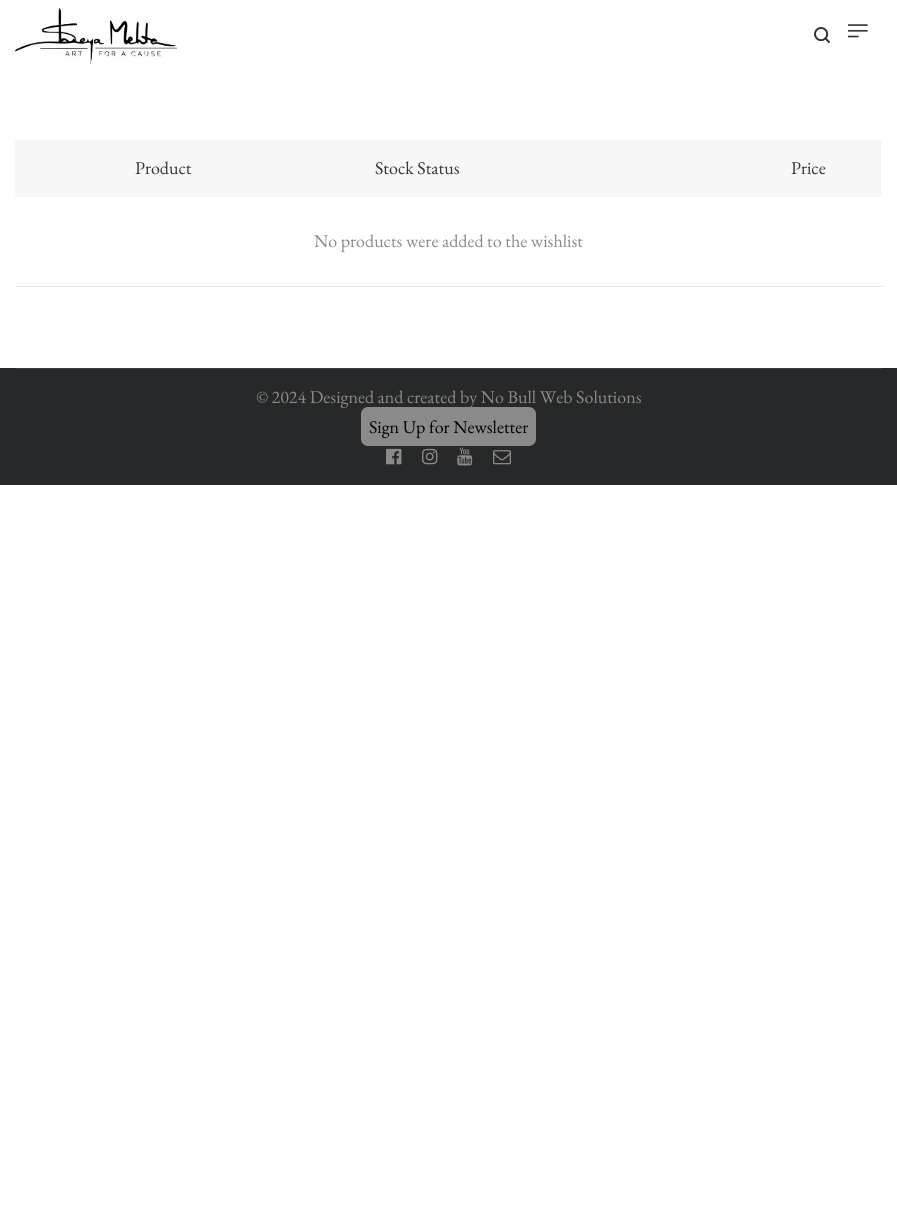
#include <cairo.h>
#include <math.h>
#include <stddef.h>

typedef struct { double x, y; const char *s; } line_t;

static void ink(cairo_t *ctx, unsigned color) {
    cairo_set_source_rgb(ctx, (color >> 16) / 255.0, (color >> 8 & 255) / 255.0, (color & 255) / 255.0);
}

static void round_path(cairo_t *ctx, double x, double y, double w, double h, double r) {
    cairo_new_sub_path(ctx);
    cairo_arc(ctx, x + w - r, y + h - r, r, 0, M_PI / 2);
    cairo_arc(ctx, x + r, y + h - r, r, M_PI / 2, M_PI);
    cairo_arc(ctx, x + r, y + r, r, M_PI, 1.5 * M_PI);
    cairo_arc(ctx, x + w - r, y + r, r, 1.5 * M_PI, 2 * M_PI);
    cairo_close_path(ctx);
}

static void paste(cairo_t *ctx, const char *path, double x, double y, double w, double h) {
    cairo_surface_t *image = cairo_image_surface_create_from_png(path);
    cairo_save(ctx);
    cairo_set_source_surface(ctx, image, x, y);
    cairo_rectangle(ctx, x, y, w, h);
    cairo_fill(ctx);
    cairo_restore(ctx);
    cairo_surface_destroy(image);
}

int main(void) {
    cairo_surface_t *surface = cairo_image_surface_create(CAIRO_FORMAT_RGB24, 897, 1230);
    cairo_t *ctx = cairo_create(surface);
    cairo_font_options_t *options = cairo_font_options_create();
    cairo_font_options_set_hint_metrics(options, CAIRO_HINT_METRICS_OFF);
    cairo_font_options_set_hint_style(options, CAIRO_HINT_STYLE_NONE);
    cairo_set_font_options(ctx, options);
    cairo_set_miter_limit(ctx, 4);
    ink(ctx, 0xFFFFFF);
    cairo_paint(ctx);
    paste(ctx, "media/1.png", 15, 8, 162, 56);
    paste(ctx, "media/2.png", 814, 27, 16, 16);
    paste(ctx, "media/3.png", 848, 24, 20, 14);
    ink(ctx, 0xF7F7F7);
    cairo_rectangle(ctx, 15, 140, 867, 57);
    cairo_fill(ctx);
    cairo_select_font_face(ctx, "EB Garamond", CAIRO_FONT_SLANT_NORMAL, CAIRO_FONT_WEIGHT_NORMAL);
    cairo_set_font_size(ctx, 18);
    ink(ctx, 0x343538);
    {
        static const line_t items[] = {
            {135, 174, "Product"},
            {375, 174, "Stock Status"},
            {791, 174, "Price"},
        };
        for (size_t i = 0; i < sizeof items / sizeof *items; i++) {
            cairo_move_to(ctx, items[i].x, items[i].y);
            cairo_show_text(ctx, items[i].s);
        }
    }
    ink(ctx, 0xE8E8E8);
    cairo_rectangle(ctx, 15, 286, 868, 1);
    cairo_fill(ctx);
    ink(ctx, 0x8A8A8A);
    cairo_move_to(ctx, 314, 247);
    cairo_show_text(ctx, "No products were added to the wishlist");
    ink(ctx, 0x272829);
    cairo_rectangle(ctx, 0, 368, 897, 117);
    cairo_fill(ctx);
    ink(ctx, 0x3B3C3C);
    cairo_rectangle(ctx, 15, 368, 867, 1);
    cairo_fill(ctx);
    ink(ctx, 0x8A8A8A);
    cairo_move_to(ctx, 256, 403);
    cairo_show_text(ctx, "© 2024 Designed and created by No Bull Web Solutions");
    round_path(ctx, 361, 407, 175, 39, 7);
    cairo_fill(ctx);
    ink(ctx, 0x000000);
    cairo_move_to(ctx, 369, 433);
    cairo_show_text(ctx, "Sign Up for Newsletter");
    paste(ctx, "media/4.png", 386, 448, 16, 17);
    paste(ctx, "media/5.png", 422, 448, 16, 17);
    paste(ctx, "media/6.png", 457, 447, 16, 19);
    paste(ctx, "media/7.png", 493, 450, 18, 15);
    cairo_surface_write_to_png(surface, "image.png");
    cairo_font_options_destroy(options);
    cairo_destroy(ctx);
    cairo_surface_destroy(surface);
    return 0;
}
